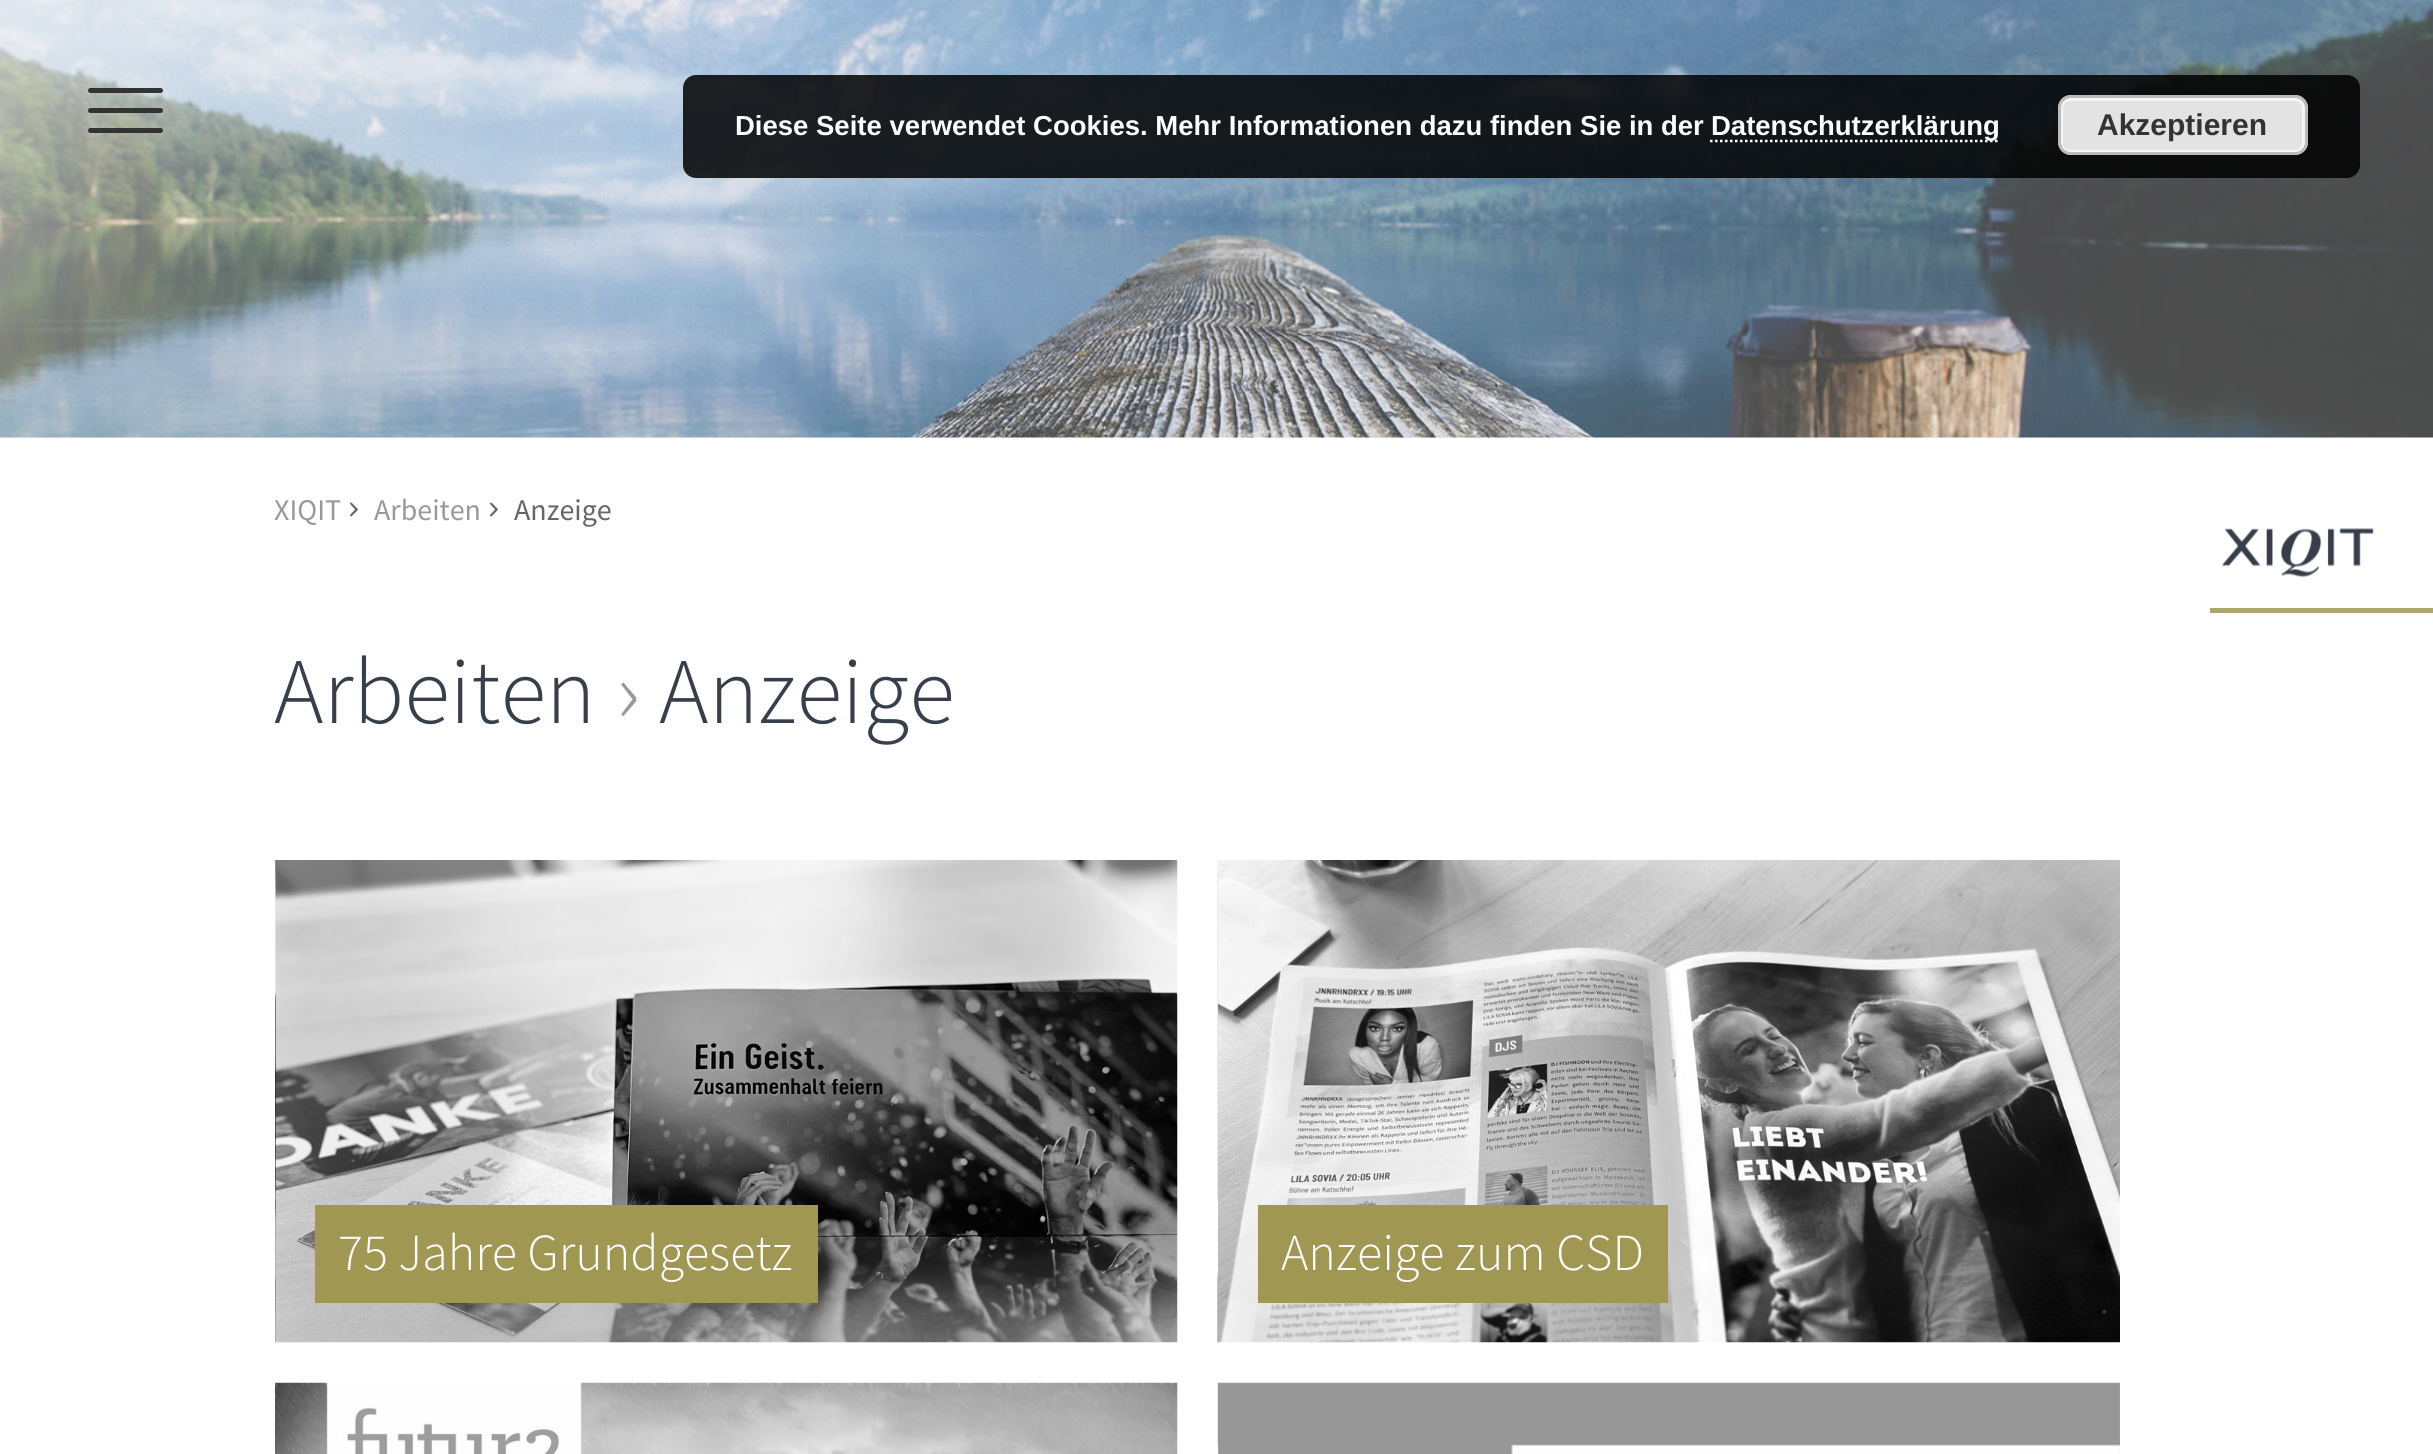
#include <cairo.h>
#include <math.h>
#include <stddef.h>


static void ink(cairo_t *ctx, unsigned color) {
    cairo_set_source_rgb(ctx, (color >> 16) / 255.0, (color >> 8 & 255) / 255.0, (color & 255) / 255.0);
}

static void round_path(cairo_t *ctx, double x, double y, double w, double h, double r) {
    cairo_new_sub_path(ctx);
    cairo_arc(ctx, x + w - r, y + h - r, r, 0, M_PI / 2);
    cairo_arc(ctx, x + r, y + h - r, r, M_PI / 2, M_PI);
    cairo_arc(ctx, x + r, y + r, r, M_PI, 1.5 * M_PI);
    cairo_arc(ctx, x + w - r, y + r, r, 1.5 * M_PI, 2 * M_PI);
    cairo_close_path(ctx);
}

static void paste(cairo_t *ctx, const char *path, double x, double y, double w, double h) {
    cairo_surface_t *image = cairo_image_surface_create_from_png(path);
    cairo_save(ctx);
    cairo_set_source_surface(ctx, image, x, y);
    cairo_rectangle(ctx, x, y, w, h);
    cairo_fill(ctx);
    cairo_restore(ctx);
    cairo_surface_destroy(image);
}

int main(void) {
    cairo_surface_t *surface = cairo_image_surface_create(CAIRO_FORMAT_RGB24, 2433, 1454);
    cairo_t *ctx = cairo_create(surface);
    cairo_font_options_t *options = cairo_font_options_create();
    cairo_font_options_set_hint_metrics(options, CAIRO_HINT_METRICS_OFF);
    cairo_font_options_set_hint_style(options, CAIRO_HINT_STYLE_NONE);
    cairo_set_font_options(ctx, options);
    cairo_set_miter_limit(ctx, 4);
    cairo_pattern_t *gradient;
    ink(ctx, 0xFFFFFF);
    cairo_paint(ctx);
    paste(ctx, "media/1.png", 0, 437, 2433, 1);
    paste(ctx, "media/3.png", 0, 0, 2433, 438);
    gradient = cairo_pattern_create_linear(499, -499, 1936, 937);
    cairo_pattern_add_color_stop_rgba(gradient, 0, 1, 1, 1, 0.7);
    cairo_pattern_add_color_stop_rgba(gradient, 0.2, 1, 1, 1, 0.2);
    cairo_set_source(ctx, gradient);
    cairo_pattern_destroy(gradient);
    cairo_rectangle(ctx, 0, 0, 2433, 438);
    cairo_fill(ctx);
    cairo_set_source_rgba(ctx, 0, 0, 0, 0.85);
    round_path(ctx, 683, 75, 1677, 103, 13);
    cairo_fill(ctx);
    cairo_select_font_face(ctx, "Liberation Sans", CAIRO_FONT_SLANT_NORMAL, CAIRO_FONT_WEIGHT_BOLD);
    cairo_set_font_size(ctx, 27.5);
    ink(ctx, 0xFFFFFF);
    cairo_move_to(ctx, 735, 135);
    cairo_show_text(ctx, "Diese Seite verwendet Cookies. Mehr Informationen dazu finden Sie in der");
    cairo_new_path(ctx);
    cairo_move_to(ctx, 1710, 141);
    cairo_line_to(ctx, 2000, 141);
    cairo_set_line_width(ctx, 2.5);
    cairo_set_dash(ctx, (double[]){2.5, 2.5}, 2, 0);
    cairo_stroke(ctx);
    cairo_move_to(ctx, 1711, 135);
    cairo_show_text(ctx, "Datenschutzerklärung");
    ink(ctx, 0xE3E3E3);
    round_path(ctx, 2058, 95, 250, 60, 13);
    cairo_fill(ctx);
    round_path(ctx, 2061.5, 99.5, 242, 52, 8.5);
    ink(ctx, 0xF6F6F6);
    cairo_set_line_width(ctx, 3);
    cairo_set_dash(ctx, NULL, 0, 0);
    cairo_stroke(ctx);
    round_path(ctx, 2059.5, 96.5, 247, 57, 11.5);
    ink(ctx, 0xBBBBBB);
    cairo_stroke(ctx);
    cairo_set_font_size(ctx, 30);
    ink(ctx, 0x333333);
    cairo_move_to(ctx, 2097, 135);
    cairo_show_text(ctx, "Akzeptieren");
    round_path(ctx, 88, 88, 75, 5, 2.5);
    cairo_fill(ctx);
    round_path(ctx, 88, 108, 75, 5, 2.5);
    cairo_fill(ctx);
    round_path(ctx, 88, 128, 75, 5, 2.5);
    cairo_fill(ctx);
    paste(ctx, "media/2.png", 2222, 528, 152, 49);
    ink(ctx, 0xAEA76D);
    cairo_rectangle(ctx, 2210, 608, 223, 5);
    cairo_fill(ctx);
    cairo_select_font_face(ctx, "Source Sans Pro", CAIRO_FONT_SLANT_NORMAL, CAIRO_FONT_WEIGHT_NORMAL);
    ink(ctx, 0x999999);
    cairo_move_to(ctx, 274, 520);
    cairo_show_text(ctx, "XIQIT");
    paste(ctx, "media/4.png", 350, 502, 8, 15);
    cairo_move_to(ctx, 374, 520);
    cairo_show_text(ctx, "Arbeiten");
    paste(ctx, "media/4.png", 490, 502, 8, 15);
    ink(ctx, 0x666666);
    cairo_move_to(ctx, 514, 520);
    cairo_show_text(ctx, "Anzeige");
    cairo_select_font_face(ctx, "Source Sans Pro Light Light", CAIRO_FONT_SLANT_NORMAL, CAIRO_FONT_WEIGHT_NORMAL);
    cairo_set_font_size(ctx, 94);
    ink(ctx, 0x373F4A);
    cairo_move_to(ctx, 274, 723);
    cairo_show_text(ctx, "Arbeiten");
    ink(ctx, 0x999999);
    cairo_move_to(ctx, 616, 723);
    cairo_show_text(ctx, "›");
    ink(ctx, 0x373F4A);
    cairo_move_to(ctx, 659, 723);
    cairo_show_text(ctx, "Anzeige");
    paste(ctx, "media/5.png", 275, 860, 903, 483);
    ink(ctx, 0xA09753);
    cairo_rectangle(ctx, 315, 1205, 503, 98);
    cairo_fill(ctx);
    cairo_set_font_size(ctx, 52);
    ink(ctx, 0xFFFFFF);
    cairo_move_to(ctx, 338, 1270);
    cairo_show_text(ctx, "75 Jahre Grundgesetz");
    paste(ctx, "media/6.png", 1217, 860, 903, 483);
    ink(ctx, 0xA09753);
    cairo_rectangle(ctx, 1258, 1205, 410, 98);
    cairo_fill(ctx);
    ink(ctx, 0xFFFFFF);
    cairo_move_to(ctx, 1281, 1270);
    cairo_show_text(ctx, "Anzeige zum CSD");
    paste(ctx, "media/7.png", 275, 1382, 903, 72);
    paste(ctx, "media/8.png", 1217, 1382, 903, 72);
    cairo_surface_write_to_png(surface, "image.png");
    cairo_font_options_destroy(options);
    cairo_destroy(ctx);
    cairo_surface_destroy(surface);
    return 0;
}
